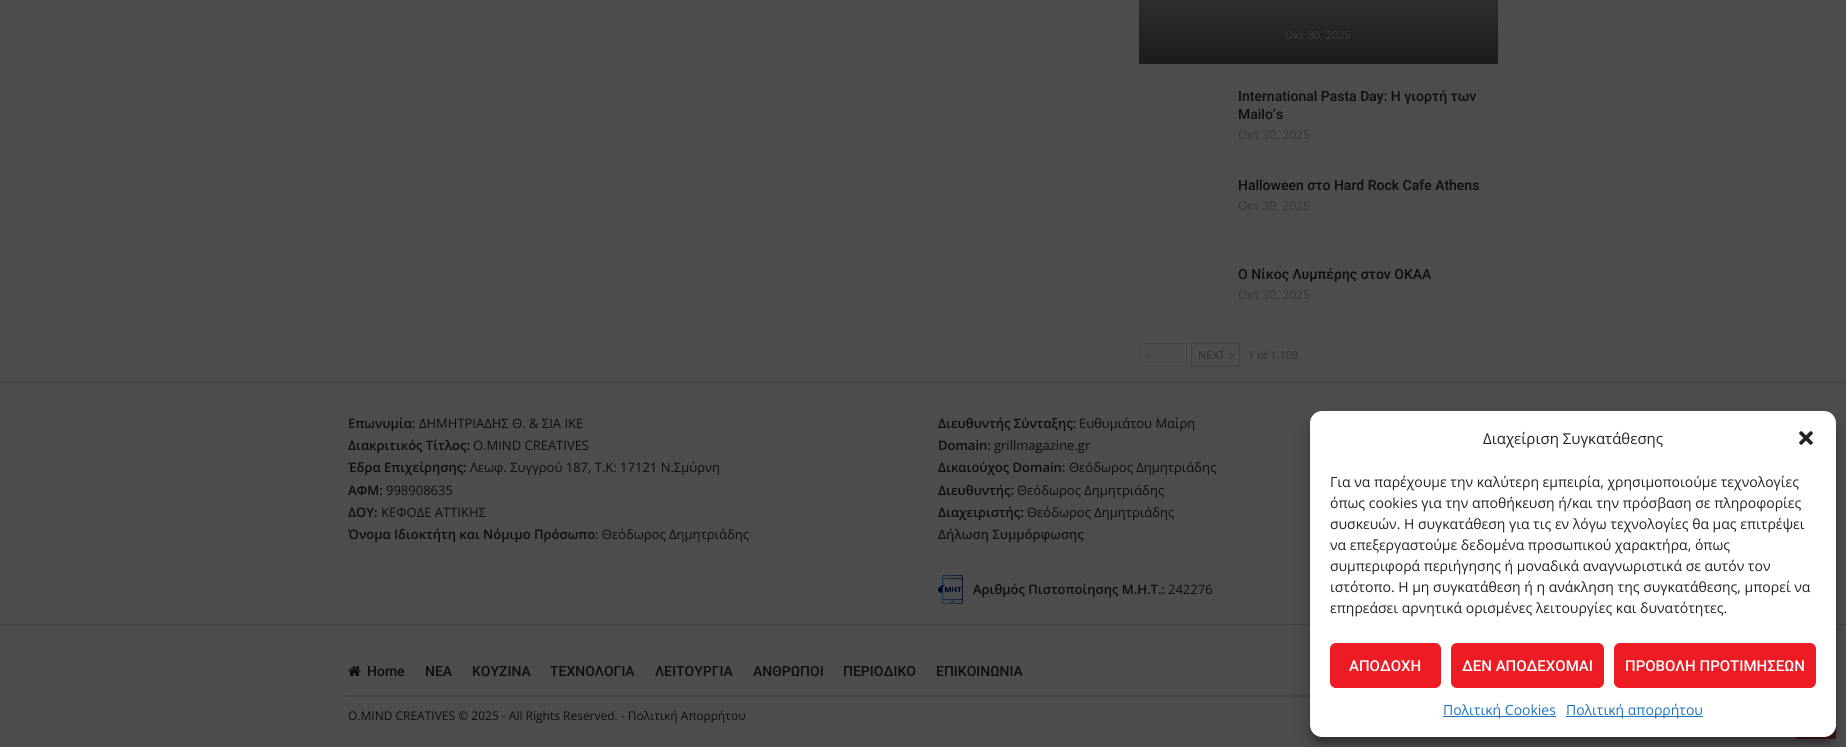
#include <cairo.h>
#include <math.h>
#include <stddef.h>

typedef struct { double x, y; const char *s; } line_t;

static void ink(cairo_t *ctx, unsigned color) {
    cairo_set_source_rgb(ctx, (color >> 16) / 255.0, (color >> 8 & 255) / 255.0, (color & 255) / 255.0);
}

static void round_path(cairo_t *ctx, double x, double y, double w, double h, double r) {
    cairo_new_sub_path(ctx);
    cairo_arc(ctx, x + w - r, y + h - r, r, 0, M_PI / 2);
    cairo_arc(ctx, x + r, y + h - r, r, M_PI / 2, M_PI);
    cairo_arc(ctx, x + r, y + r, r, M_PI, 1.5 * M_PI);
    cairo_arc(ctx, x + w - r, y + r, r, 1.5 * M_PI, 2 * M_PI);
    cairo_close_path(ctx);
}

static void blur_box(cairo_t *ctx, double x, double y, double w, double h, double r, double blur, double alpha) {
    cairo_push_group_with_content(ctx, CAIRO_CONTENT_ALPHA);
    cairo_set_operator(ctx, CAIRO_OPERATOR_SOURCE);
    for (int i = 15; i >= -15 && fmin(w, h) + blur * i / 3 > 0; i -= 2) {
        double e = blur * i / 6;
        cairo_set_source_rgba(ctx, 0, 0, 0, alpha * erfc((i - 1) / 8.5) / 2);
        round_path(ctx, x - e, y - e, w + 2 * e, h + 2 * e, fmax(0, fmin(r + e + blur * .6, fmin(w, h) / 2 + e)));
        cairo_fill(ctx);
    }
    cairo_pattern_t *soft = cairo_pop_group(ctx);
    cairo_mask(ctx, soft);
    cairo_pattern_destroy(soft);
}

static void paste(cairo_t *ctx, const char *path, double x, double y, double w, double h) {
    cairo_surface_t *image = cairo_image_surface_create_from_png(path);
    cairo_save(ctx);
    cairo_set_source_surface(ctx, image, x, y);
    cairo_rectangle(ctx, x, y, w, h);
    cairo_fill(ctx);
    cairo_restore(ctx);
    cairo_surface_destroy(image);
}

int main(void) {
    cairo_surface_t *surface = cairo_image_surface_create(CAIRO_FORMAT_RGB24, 1846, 747);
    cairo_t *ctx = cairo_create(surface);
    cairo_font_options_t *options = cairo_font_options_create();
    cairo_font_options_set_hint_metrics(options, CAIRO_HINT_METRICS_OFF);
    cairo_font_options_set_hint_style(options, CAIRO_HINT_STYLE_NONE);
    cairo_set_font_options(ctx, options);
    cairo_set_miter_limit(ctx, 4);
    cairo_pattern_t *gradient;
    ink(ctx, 0x4D4D4D);
    cairo_paint(ctx);
    gradient = cairo_pattern_create_linear(1319, -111, 1319, 65);
    cairo_pattern_add_color_stop_rgba(gradient, 0, 0.302, 0.302, 0.302, 1);
    cairo_pattern_add_color_stop_rgba(gradient, 1, 0.106, 0.106, 0.106, 1);
    cairo_set_source(ctx, gradient);
    cairo_pattern_destroy(gradient);
    cairo_rectangle(ctx, 1139, 0, 359, 64);
    cairo_fill(ctx);
    cairo_select_font_face(ctx, "Open Sans", CAIRO_FONT_SLANT_NORMAL, CAIRO_FONT_WEIGHT_NORMAL);
    cairo_set_font_size(ctx, 11);
    ink(ctx, 0x3B3B3B);
    cairo_move_to(ctx, 1285, 39);
    cairo_show_text(ctx, "Οκτ 30, 2025");
    cairo_select_font_face(ctx, "Roboto Medium", CAIRO_FONT_SLANT_NORMAL, CAIRO_FONT_WEIGHT_NORMAL);
    cairo_set_font_size(ctx, 14);
    ink(ctx, 0x0C0E0C);
    cairo_move_to(ctx, 1238, 101);
    cairo_show_text(ctx, "International Pasta Day: Η γιορτή των");
    cairo_move_to(ctx, 1238, 119);
    cairo_show_text(ctx, "Mailo’s");
    cairo_select_font_face(ctx, "Open Sans", CAIRO_FONT_SLANT_NORMAL, CAIRO_FONT_WEIGHT_NORMAL);
    cairo_set_font_size(ctx, 12);
    ink(ctx, 0x343639);
    cairo_move_to(ctx, 1238, 139);
    cairo_show_text(ctx, "Οκτ 30, 2025");
    cairo_select_font_face(ctx, "Roboto Medium", CAIRO_FONT_SLANT_NORMAL, CAIRO_FONT_WEIGHT_NORMAL);
    cairo_set_font_size(ctx, 14);
    ink(ctx, 0x0C0E0C);
    cairo_move_to(ctx, 1238, 190);
    cairo_show_text(ctx, "Halloween στο Hard Rock Cafe Athens");
    cairo_select_font_face(ctx, "Open Sans", CAIRO_FONT_SLANT_NORMAL, CAIRO_FONT_WEIGHT_NORMAL);
    cairo_set_font_size(ctx, 12);
    ink(ctx, 0x343639);
    cairo_move_to(ctx, 1238, 210);
    cairo_show_text(ctx, "Οκτ 30, 2025");
    cairo_select_font_face(ctx, "Roboto Medium", CAIRO_FONT_SLANT_NORMAL, CAIRO_FONT_WEIGHT_NORMAL);
    cairo_set_font_size(ctx, 14);
    ink(ctx, 0x0C0E0C);
    cairo_move_to(ctx, 1238, 279);
    cairo_show_text(ctx, "Ο Νίκος Λυμπέρης στον ΟΚΑΑ");
    cairo_select_font_face(ctx, "Open Sans", CAIRO_FONT_SLANT_NORMAL, CAIRO_FONT_WEIGHT_NORMAL);
    cairo_set_font_size(ctx, 12);
    ink(ctx, 0x343639);
    cairo_move_to(ctx, 1238, 299);
    cairo_show_text(ctx, "Οκτ 30, 2025");
    cairo_rectangle(ctx, 1139.5, 343.5, 47, 23);
    ink(ctx, 0x474747);
    cairo_set_line_width(ctx, 1);
    cairo_stroke(ctx);
    paste(ctx, "media/1.png", 1146, 352, 4, 7);
    cairo_rectangle(ctx, 1191.5, 343.5, 48, 23);
    ink(ctx, 0x414141);
    cairo_stroke(ctx);
    cairo_set_font_size(ctx, 11);
    ink(ctx, 0x2F2F2F);
    cairo_move_to(ctx, 1198, 359);
    cairo_show_text(ctx, "NEXT");
    paste(ctx, "media/2.png", 1230, 352, 4, 7);
    cairo_move_to(ctx, 1248, 359);
    cairo_show_text(ctx, "1 of 1.109");
    ink(ctx, 0x414141);
    cairo_rectangle(ctx, 0, 382, 1846, 1);
    cairo_fill(ctx);
    cairo_select_font_face(ctx, "Open Sans SemiBold", CAIRO_FONT_SLANT_NORMAL, CAIRO_FONT_WEIGHT_NORMAL);
    cairo_set_font_size(ctx, 13);
    ink(ctx, 0x0C0E0C);
    cairo_move_to(ctx, 348, 428);
    cairo_show_text(ctx, "Επωνυμία:");
    cairo_select_font_face(ctx, "Open Sans", CAIRO_FONT_SLANT_NORMAL, CAIRO_FONT_WEIGHT_NORMAL);
    cairo_move_to(ctx, 419, 428);
    cairo_show_text(ctx, "ΔΗΜΗΤΡΙΑΔΗΣ Θ. & ΣΙΑ ΙΚΕ");
    cairo_select_font_face(ctx, "Open Sans SemiBold", CAIRO_FONT_SLANT_NORMAL, CAIRO_FONT_WEIGHT_NORMAL);
    cairo_move_to(ctx, 348, 450);
    cairo_show_text(ctx, "Διακριτικός Τίτλος:");
    cairo_select_font_face(ctx, "Open Sans", CAIRO_FONT_SLANT_NORMAL, CAIRO_FONT_WEIGHT_NORMAL);
    cairo_move_to(ctx, 473, 450);
    cairo_show_text(ctx, "O.MIND CREATIVES");
    cairo_select_font_face(ctx, "Open Sans SemiBold", CAIRO_FONT_SLANT_NORMAL, CAIRO_FONT_WEIGHT_NORMAL);
    cairo_move_to(ctx, 348, 472);
    cairo_show_text(ctx, "Έδρα Επιχείρησης:");
    cairo_select_font_face(ctx, "Open Sans", CAIRO_FONT_SLANT_NORMAL, CAIRO_FONT_WEIGHT_NORMAL);
    cairo_move_to(ctx, 470, 472);
    cairo_show_text(ctx, "Λεωφ. Συγγρού 187, Τ.Κ: 17121 Ν.Σμύρνη");
    cairo_select_font_face(ctx, "Open Sans SemiBold", CAIRO_FONT_SLANT_NORMAL, CAIRO_FONT_WEIGHT_NORMAL);
    cairo_move_to(ctx, 348, 495);
    cairo_show_text(ctx, "ΑΦΜ:");
    cairo_select_font_face(ctx, "Open Sans", CAIRO_FONT_SLANT_NORMAL, CAIRO_FONT_WEIGHT_NORMAL);
    cairo_move_to(ctx, 386, 495);
    cairo_show_text(ctx, "998908635");
    cairo_select_font_face(ctx, "Open Sans SemiBold", CAIRO_FONT_SLANT_NORMAL, CAIRO_FONT_WEIGHT_NORMAL);
    cairo_move_to(ctx, 348, 517);
    cairo_show_text(ctx, "ΔΟΥ:");
    cairo_select_font_face(ctx, "Open Sans", CAIRO_FONT_SLANT_NORMAL, CAIRO_FONT_WEIGHT_NORMAL);
    cairo_move_to(ctx, 381, 517);
    cairo_show_text(ctx, "ΚΕΦΟΔΕ ΑΤΤΙΚΗΣ");
    cairo_select_font_face(ctx, "Open Sans SemiBold", CAIRO_FONT_SLANT_NORMAL, CAIRO_FONT_WEIGHT_NORMAL);
    cairo_move_to(ctx, 348, 539);
    cairo_show_text(ctx, "Όνομα Ιδιοκτήτη και Νόμιμο Πρόσωπο");
    cairo_select_font_face(ctx, "Open Sans", CAIRO_FONT_SLANT_NORMAL, CAIRO_FONT_WEIGHT_NORMAL);
    cairo_move_to(ctx, 595, 539);
    cairo_show_text(ctx, ": Θεόδωρος Δημητριάδης");
    cairo_select_font_face(ctx, "Open Sans SemiBold", CAIRO_FONT_SLANT_NORMAL, CAIRO_FONT_WEIGHT_NORMAL);
    cairo_move_to(ctx, 938, 428);
    cairo_show_text(ctx, "Διευθυντής Σύνταξης:");
    cairo_select_font_face(ctx, "Open Sans", CAIRO_FONT_SLANT_NORMAL, CAIRO_FONT_WEIGHT_NORMAL);
    cairo_move_to(ctx, 1079, 428);
    cairo_show_text(ctx, "Ευθυμιάτου Μαίρη");
    cairo_select_font_face(ctx, "Open Sans SemiBold", CAIRO_FONT_SLANT_NORMAL, CAIRO_FONT_WEIGHT_NORMAL);
    cairo_move_to(ctx, 938, 450);
    cairo_show_text(ctx, "Domain:");
    cairo_select_font_face(ctx, "Open Sans", CAIRO_FONT_SLANT_NORMAL, CAIRO_FONT_WEIGHT_NORMAL);
    cairo_move_to(ctx, 994, 450);
    cairo_show_text(ctx, "grillmagazine.gr");
    cairo_select_font_face(ctx, "Open Sans SemiBold", CAIRO_FONT_SLANT_NORMAL, CAIRO_FONT_WEIGHT_NORMAL);
    cairo_move_to(ctx, 938, 472);
    cairo_show_text(ctx, "Δικαιούχος Domain:");
    cairo_select_font_face(ctx, "Open Sans", CAIRO_FONT_SLANT_NORMAL, CAIRO_FONT_WEIGHT_NORMAL);
    cairo_move_to(ctx, 1069, 472);
    cairo_show_text(ctx, "Θεόδωρος Δημητριάδης");
    cairo_select_font_face(ctx, "Open Sans SemiBold", CAIRO_FONT_SLANT_NORMAL, CAIRO_FONT_WEIGHT_NORMAL);
    cairo_move_to(ctx, 938, 495);
    cairo_show_text(ctx, "Διευθυντής:");
    cairo_select_font_face(ctx, "Open Sans", CAIRO_FONT_SLANT_NORMAL, CAIRO_FONT_WEIGHT_NORMAL);
    cairo_move_to(ctx, 1017, 495);
    cairo_show_text(ctx, "Θεόδωρος Δημητριάδης");
    cairo_select_font_face(ctx, "Open Sans SemiBold", CAIRO_FONT_SLANT_NORMAL, CAIRO_FONT_WEIGHT_NORMAL);
    cairo_move_to(ctx, 938, 517);
    cairo_show_text(ctx, "Διαχειριστής:");
    cairo_select_font_face(ctx, "Open Sans", CAIRO_FONT_SLANT_NORMAL, CAIRO_FONT_WEIGHT_NORMAL);
    cairo_move_to(ctx, 1027, 517);
    cairo_show_text(ctx, "Θεόδωρος Δημητριάδης");
    cairo_select_font_face(ctx, "Open Sans SemiBold", CAIRO_FONT_SLANT_NORMAL, CAIRO_FONT_WEIGHT_NORMAL);
    ink(ctx, 0x141414);
    cairo_move_to(ctx, 938, 539);
    cairo_show_text(ctx, "Δήλωση Συμμόρφωσης");
    paste(ctx, "media/3.png", 938, 575, 25, 29);
    ink(ctx, 0x0C0E0C);
    cairo_move_to(ctx, 973, 594);
    cairo_show_text(ctx, "Αριθμός Πιστοποίησης Μ.Η.Τ.:");
    cairo_select_font_face(ctx, "Open Sans", CAIRO_FONT_SLANT_NORMAL, CAIRO_FONT_WEIGHT_NORMAL);
    cairo_move_to(ctx, 1168, 594);
    cairo_show_text(ctx, "242276");
    ink(ctx, 0x414141);
    cairo_rectangle(ctx, 0, 624, 1846, 1);
    cairo_fill(ctx);
    ink(ctx, 0x434343);
    cairo_rectangle(ctx, 348, 695, 962, 2);
    cairo_fill(ctx);
    paste(ctx, "media/4.png", 348, 666, 13, 10);
    cairo_select_font_face(ctx, "Roboto Medium", CAIRO_FONT_SLANT_NORMAL, CAIRO_FONT_WEIGHT_NORMAL);
    cairo_set_font_size(ctx, 14);
    ink(ctx, 0x0C0E0C);
    {
        static const line_t items[] = {
            {367, 676, "Home"},
            {425, 676, "NEA"},
            {472, 676, "ΚΟΥΖΙΝΑ"},
            {550, 676, "ΤΕΧΝΟΛΟΓΙΑ"},
            {655, 676, "ΛΕΙΤΟΥΡΓΙΑ"},
            {753, 676, "ΑΝΘΡΩΠΟΙ"},
            {843, 676, "ΠΕΡΙΟΔΙΚΟ"},
            {936, 676, "ΕΠΙΚΟΙΝΩΝΙΑ"},
        };
        for (size_t i = 0; i < sizeof items / sizeof *items; i++) {
            cairo_move_to(ctx, items[i].x, items[i].y);
            cairo_show_text(ctx, items[i].s);
        }
    }
    cairo_select_font_face(ctx, "Open Sans", CAIRO_FONT_SLANT_NORMAL, CAIRO_FONT_WEIGHT_NORMAL);
    cairo_set_font_size(ctx, 12);
    cairo_move_to(ctx, 348, 720);
    cairo_show_text(ctx, "O.MIND CREATIVES © 2025 - All Rights Reserved. - Πολιτική Απορρήτου");
    ink(ctx, 0x481618);
    cairo_rectangle(ctx, 1796, 725, 40, 14);
    cairo_fill(ctx);
    ink(ctx, 0x000000);
    blur_box(ctx, 1310, 417, 526, 326, 12, 3, 0.23);
    blur_box(ctx, 1310, 421, 526, 326, 12, 10, 0.19);
    ink(ctx, 0xFFFFFF);
    round_path(ctx, 1310, 411, 526, 326, 12);
    cairo_fill(ctx);
    cairo_set_font_size(ctx, 15);
    ink(ctx, 0x222222);
    cairo_move_to(ctx, 1483, 444);
    cairo_show_text(ctx, "Διαχείριση Συγκατάθεσης");
    paste(ctx, "media/5.png", 1799, 431, 14, 14);
    cairo_set_font_size(ctx, 14);
    {
        static const line_t items[] = {
            {1330, 487, "Για να παρέχουμε την καλύτερη εμπειρία, χρησιμοποιούμε τεχνολογίες"},
            {1330, 508, "όπως cookies για την αποθήκευση ή/και την πρόσβαση σε πληροφορίες"},
            {1330, 529, "συσκευών. Η συγκατάθεση για τις εν λόγω τεχνολογίες θα μας επιτρέψει"},
            {1330, 550, "να επεξεργαστούμε δεδομένα προσωπικού χαρακτήρα, όπως"},
            {1330, 571, "συμπεριφορά περιήγησης ή μοναδικά αναγνωριστικά σε αυτόν τον"},
            {1330, 592, "ιστότοπο. Η μη συγκατάθεση ή η ανάκληση της συγκατάθεσης, μπορεί να"},
            {1330, 613, "επηρεάσει αρνητικά ορισμένες λειτουργίες και δυνατότητες."},
        };
        for (size_t i = 0; i < sizeof items / sizeof *items; i++) {
            cairo_move_to(ctx, items[i].x, items[i].y);
            cairo_show_text(ctx, items[i].s);
        }
    }
    ink(ctx, 0xED1C24);
    round_path(ctx, 1330.5, 643.5, 110, 44, 5.5);
    cairo_fill_preserve(ctx);
    cairo_stroke(ctx);
    cairo_select_font_face(ctx, "Roboto Medium", CAIRO_FONT_SLANT_NORMAL, CAIRO_FONT_WEIGHT_NORMAL);
    cairo_set_font_size(ctx, 15);
    ink(ctx, 0xFFFFFF);
    cairo_move_to(ctx, 1349, 671);
    cairo_show_text(ctx, "ΑΠΟΔΟΧΗ");
    ink(ctx, 0xED1C24);
    round_path(ctx, 1451.5, 643.5, 152, 44, 5.5);
    cairo_fill_preserve(ctx);
    cairo_stroke(ctx);
    ink(ctx, 0xFFFFFF);
    cairo_move_to(ctx, 1462, 671);
    cairo_show_text(ctx, "ΔΕΝ ΑΠΟΔΕΧΟΜΑΙ");
    ink(ctx, 0xED1C24);
    round_path(ctx, 1614.5, 643.5, 201, 44, 5.5);
    cairo_fill_preserve(ctx);
    cairo_stroke(ctx);
    ink(ctx, 0xFFFFFF);
    cairo_move_to(ctx, 1625, 671);
    cairo_show_text(ctx, "ΠΡΟΒΟΛΗ ΠΡΟΤΙΜΗΣΕΩΝ");
    ink(ctx, 0x1E73BE);
    cairo_rectangle(ctx, 1443, 716, 113, 1);
    cairo_fill(ctx);
    cairo_select_font_face(ctx, "Open Sans", CAIRO_FONT_SLANT_NORMAL, CAIRO_FONT_WEIGHT_NORMAL);
    cairo_set_font_size(ctx, 14);
    cairo_move_to(ctx, 1443, 715);
    cairo_show_text(ctx, "Πολιτική Cookies");
    cairo_rectangle(ctx, 1566, 716, 137, 1);
    cairo_fill(ctx);
    cairo_move_to(ctx, 1566, 715);
    cairo_show_text(ctx, "Πολιτική απορρήτου");
    cairo_surface_write_to_png(surface, "image.png");
    cairo_font_options_destroy(options);
    cairo_destroy(ctx);
    cairo_surface_destroy(surface);
    return 0;
}
